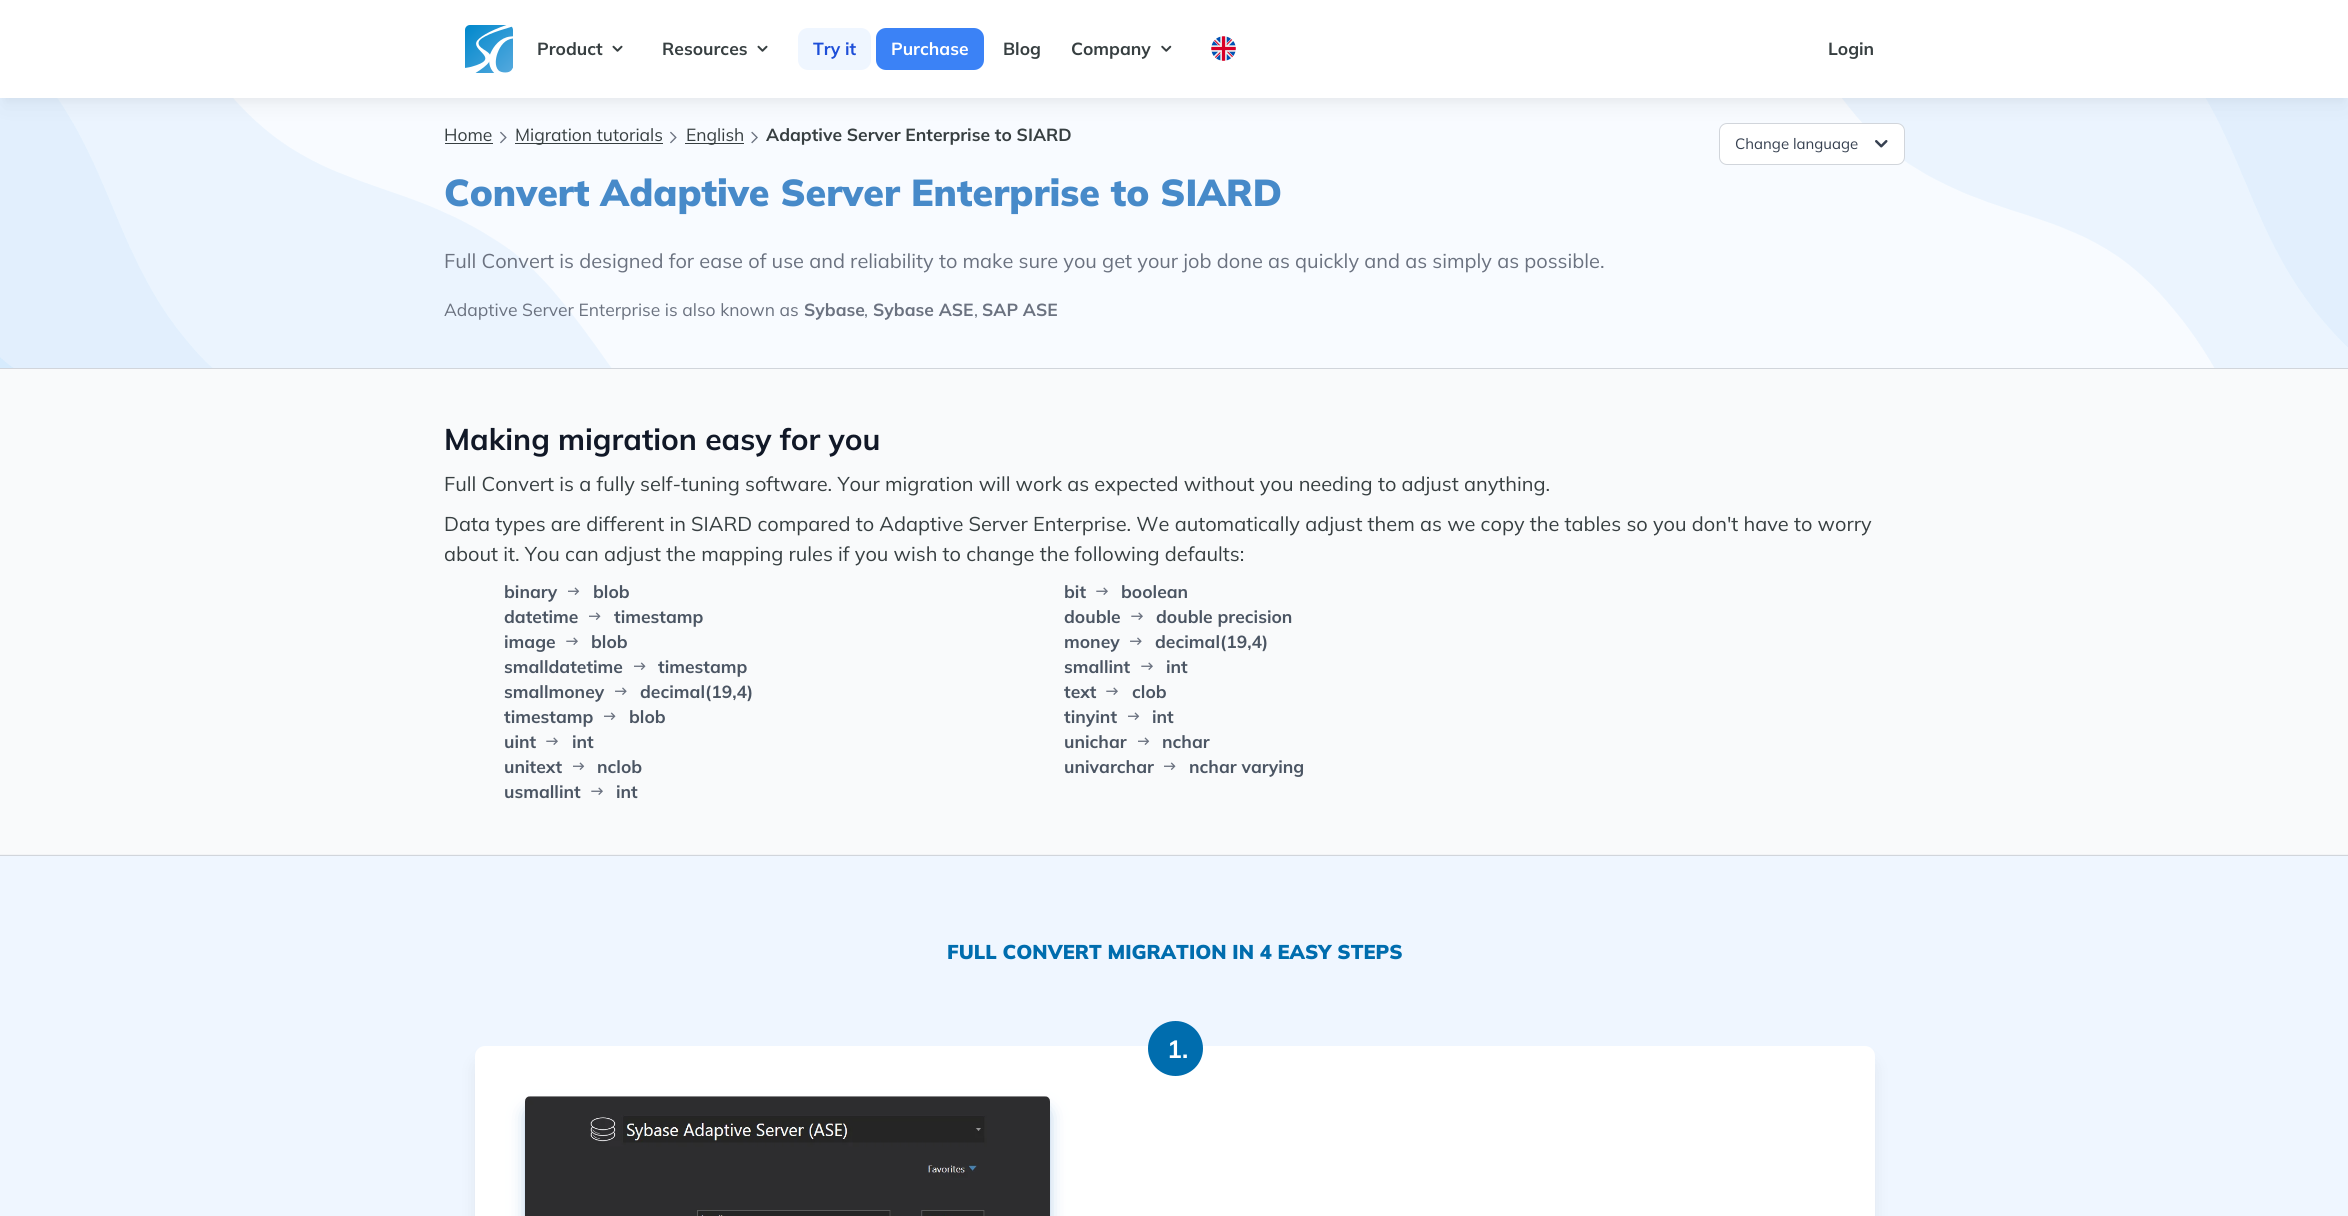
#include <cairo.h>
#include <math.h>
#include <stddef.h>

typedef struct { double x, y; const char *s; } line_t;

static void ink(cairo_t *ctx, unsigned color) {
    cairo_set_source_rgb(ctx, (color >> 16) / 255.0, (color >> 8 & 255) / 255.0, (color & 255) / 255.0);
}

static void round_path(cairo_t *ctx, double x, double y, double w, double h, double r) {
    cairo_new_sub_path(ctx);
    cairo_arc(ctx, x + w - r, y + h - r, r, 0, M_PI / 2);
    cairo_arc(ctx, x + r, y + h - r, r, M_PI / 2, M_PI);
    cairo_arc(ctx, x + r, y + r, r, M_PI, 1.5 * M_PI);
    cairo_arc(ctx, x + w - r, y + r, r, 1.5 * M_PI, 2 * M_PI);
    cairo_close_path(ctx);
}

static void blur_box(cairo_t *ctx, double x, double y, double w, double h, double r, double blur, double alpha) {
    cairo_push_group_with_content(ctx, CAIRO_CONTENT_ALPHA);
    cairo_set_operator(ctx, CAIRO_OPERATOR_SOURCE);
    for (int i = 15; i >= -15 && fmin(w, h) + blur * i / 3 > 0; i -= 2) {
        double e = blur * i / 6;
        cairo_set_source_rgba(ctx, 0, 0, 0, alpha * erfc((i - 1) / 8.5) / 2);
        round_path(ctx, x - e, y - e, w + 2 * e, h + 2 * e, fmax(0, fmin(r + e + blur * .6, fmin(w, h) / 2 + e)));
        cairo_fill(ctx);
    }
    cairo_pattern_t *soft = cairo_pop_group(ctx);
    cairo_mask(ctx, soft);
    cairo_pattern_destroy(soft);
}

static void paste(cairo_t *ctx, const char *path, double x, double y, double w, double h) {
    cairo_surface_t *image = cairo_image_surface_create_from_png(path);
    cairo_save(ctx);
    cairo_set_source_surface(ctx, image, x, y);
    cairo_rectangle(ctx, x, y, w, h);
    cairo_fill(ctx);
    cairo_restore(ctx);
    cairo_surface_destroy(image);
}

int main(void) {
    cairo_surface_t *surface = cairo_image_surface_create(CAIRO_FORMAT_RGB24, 2348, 1216);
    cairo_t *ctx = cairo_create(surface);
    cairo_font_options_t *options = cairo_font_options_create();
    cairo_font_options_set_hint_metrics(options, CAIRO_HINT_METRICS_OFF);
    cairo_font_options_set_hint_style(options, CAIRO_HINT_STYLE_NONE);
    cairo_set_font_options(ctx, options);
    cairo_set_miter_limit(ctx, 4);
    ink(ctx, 0xFFFFFF);
    cairo_paint(ctx);
    cairo_save(ctx);
    cairo_set_fill_rule(ctx, CAIRO_FILL_RULE_EVEN_ODD);
    cairo_new_path(ctx);
    cairo_move_to(ctx, 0, 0);
    cairo_line_to(ctx, 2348, 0);
    cairo_line_to(ctx, 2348, 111);
    cairo_line_to(ctx, 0, 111);
    cairo_close_path(ctx);
    cairo_move_to(ctx, 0, 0);
    cairo_line_to(ctx, 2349, 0);
    cairo_line_to(ctx, 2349, 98);
    cairo_line_to(ctx, 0, 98);
    cairo_close_path(ctx);
    cairo_clip(ctx);
    ink(ctx, 0x000000);
    blur_box(ctx, 5, 10, 2339, 88, 0, 4, 0.1);
    cairo_restore(ctx);
    cairo_save(ctx);
    cairo_set_fill_rule(ctx, CAIRO_FILL_RULE_EVEN_ODD);
    cairo_new_path(ctx);
    cairo_move_to(ctx, 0, 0);
    cairo_line_to(ctx, 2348, 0);
    cairo_line_to(ctx, 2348, 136);
    cairo_line_to(ctx, 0, 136);
    cairo_close_path(ctx);
    cairo_move_to(ctx, 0, 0);
    cairo_line_to(ctx, 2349, 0);
    cairo_line_to(ctx, 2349, 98);
    cairo_line_to(ctx, 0, 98);
    cairo_close_path(ctx);
    cairo_clip(ctx);
    ink(ctx, 0x000000);
    blur_box(ctx, 4, 16, 2341, 90, 0, 9.5, 0.1);
    cairo_restore(ctx);
    paste(ctx, "media/1.png", 465, 25, 48, 48);
    cairo_select_font_face(ctx, "Mulish ExtraLight", CAIRO_FONT_SLANT_NORMAL, CAIRO_FONT_WEIGHT_NORMAL);
    cairo_set_font_size(ctx, 17.5);
    ink(ctx, 0x373F41);
    cairo_move_to(ctx, 537, 55);
    cairo_show_text(ctx, "Product");
    paste(ctx, "media/2.png", 612, 45, 11, 7);
    cairo_move_to(ctx, 662, 55);
    cairo_show_text(ctx, "Resources");
    paste(ctx, "media/2.png", 757, 45, 11, 7);
    ink(ctx, 0xEFF6FF);
    round_path(ctx, 798, 28, 73, 42, 10);
    cairo_fill(ctx);
    ink(ctx, 0x1D4ED8);
    cairo_move_to(ctx, 813, 55);
    cairo_show_text(ctx, "Try it");
    ink(ctx, 0x3B82F6);
    round_path(ctx, 876, 28, 108, 42, 10);
    cairo_fill(ctx);
    ink(ctx, 0xFFFFFF);
    cairo_move_to(ctx, 891, 55);
    cairo_show_text(ctx, "Purchase");
    ink(ctx, 0x373F41);
    cairo_move_to(ctx, 1003, 55);
    cairo_show_text(ctx, "Blog");
    cairo_move_to(ctx, 1071, 55);
    cairo_show_text(ctx, "Company");
    paste(ctx, "media/3.png", 1161, 45, 11, 7);
    paste(ctx, "media/4.png", 1211, 36, 25, 25);
    cairo_move_to(ctx, 1828, 55);
    cairo_show_text(ctx, "Login");
    paste(ctx, "media/5.png", 0, 98, 2348, 270);
    ink(ctx, 0xD1D5DB);
    cairo_rectangle(ctx, 0, 368, 2348, 1);
    cairo_fill(ctx);
    cairo_select_font_face(ctx, "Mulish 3 ExtraLight", CAIRO_FONT_SLANT_NORMAL, CAIRO_FONT_WEIGHT_NORMAL);
    ink(ctx, 0x373F41);
    cairo_move_to(ctx, 444, 141);
    cairo_show_text(ctx, "Home");
    cairo_rectangle(ctx, 445, 143, 48, 1);
    cairo_fill(ctx);
    paste(ctx, "media/6.png", 500, 131, 7, 13);
    cairo_rectangle(ctx, 515, 143, 148, 1);
    cairo_fill(ctx);
    cairo_move_to(ctx, 515, 141);
    cairo_show_text(ctx, "Migration tutorials");
    paste(ctx, "media/6.png", 670, 131, 7, 13);
    cairo_rectangle(ctx, 685, 143, 59, 1);
    cairo_fill(ctx);
    cairo_move_to(ctx, 686, 141);
    cairo_show_text(ctx, "English");
    paste(ctx, "media/7.png", 751, 131, 7, 13);
    cairo_select_font_face(ctx, "Mulish ExtraLight", CAIRO_FONT_SLANT_NORMAL, CAIRO_FONT_WEIGHT_NORMAL);
    cairo_move_to(ctx, 766, 141);
    cairo_show_text(ctx, "Adaptive Server Enterprise to SIARD");
    ink(ctx, 0xFFFFFF);
    round_path(ctx, 1719.5, 123.5, 185, 41, 7.5);
    cairo_fill_preserve(ctx);
    ink(ctx, 0xD1D5DB);
    cairo_set_line_width(ctx, 1);
    cairo_stroke(ctx);
    cairo_select_font_face(ctx, "Mulish 3 ExtraLight", CAIRO_FONT_SLANT_NORMAL, CAIRO_FONT_WEIGHT_NORMAL);
    cairo_set_font_size(ctx, 15);
    ink(ctx, 0x374151);
    cairo_move_to(ctx, 1735, 149);
    cairo_show_text(ctx, "Change language");
    paste(ctx, "media/8.png", 1875, 140, 13, 8);
    cairo_select_font_face(ctx, "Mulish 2 ExtraLight", CAIRO_FONT_SLANT_NORMAL, CAIRO_FONT_WEIGHT_NORMAL);
    cairo_set_font_size(ctx, 37.5);
    ink(ctx, 0x478AC9);
    cairo_move_to(ctx, 444, 206);
    cairo_show_text(ctx, "Convert Adaptive Server Enterprise to SIARD");
    cairo_select_font_face(ctx, "Mulish 3 ExtraLight", CAIRO_FONT_SLANT_NORMAL, CAIRO_FONT_WEIGHT_NORMAL);
    cairo_set_font_size(ctx, 20);
    ink(ctx, 0x6B7280);
    cairo_move_to(ctx, 444, 268);
    cairo_show_text(ctx, "Full Convert is designed for ease of use and reliability to make sure you get your job done as quickly and as simply as possible.");
    cairo_set_font_size(ctx, 17.5);
    cairo_move_to(ctx, 444, 316);
    cairo_show_text(ctx, "Adaptive Server Enterprise is also known as");
    cairo_select_font_face(ctx, "Mulish ExtraLight", CAIRO_FONT_SLANT_NORMAL, CAIRO_FONT_WEIGHT_NORMAL);
    cairo_move_to(ctx, 804, 316);
    cairo_show_text(ctx, "Sybase");
    cairo_select_font_face(ctx, "Mulish 3 ExtraLight", CAIRO_FONT_SLANT_NORMAL, CAIRO_FONT_WEIGHT_NORMAL);
    cairo_move_to(ctx, 864, 316);
    cairo_show_text(ctx, ",");
    cairo_select_font_face(ctx, "Mulish ExtraLight", CAIRO_FONT_SLANT_NORMAL, CAIRO_FONT_WEIGHT_NORMAL);
    cairo_move_to(ctx, 873, 316);
    cairo_show_text(ctx, "Sybase ASE");
    cairo_select_font_face(ctx, "Mulish 3 ExtraLight", CAIRO_FONT_SLANT_NORMAL, CAIRO_FONT_WEIGHT_NORMAL);
    cairo_move_to(ctx, 974, 316);
    cairo_show_text(ctx, ",");
    cairo_select_font_face(ctx, "Mulish ExtraLight", CAIRO_FONT_SLANT_NORMAL, CAIRO_FONT_WEIGHT_NORMAL);
    cairo_move_to(ctx, 982, 316);
    cairo_show_text(ctx, "SAP ASE");
    ink(ctx, 0xF9FAFB);
    cairo_rectangle(ctx, 0, 369, 2348, 485);
    cairo_fill(ctx);
    ink(ctx, 0xF3F4F6);
    cairo_rectangle(ctx, 0, 854, 2348, 1);
    cairo_fill(ctx);
    cairo_set_font_size(ctx, 30);
    ink(ctx, 0x111827);
    cairo_move_to(ctx, 444, 450);
    cairo_show_text(ctx, "Making migration easy for you");
    cairo_select_font_face(ctx, "Mulish 3 ExtraLight", CAIRO_FONT_SLANT_NORMAL, CAIRO_FONT_WEIGHT_NORMAL);
    cairo_set_font_size(ctx, 20);
    ink(ctx, 0x373F41);
    {
        static const line_t items[] = {
            {444, 491, "Full Convert is a fully self-tuning software. Your migration will work as expected without you needing to adjust anything."},
            {444, 531, "Data types are different in SIARD compared to Adaptive Server Enterprise. We automatically adjust them as we copy the tables so you don't have to worry"},
            {444, 561, "about it. You can adjust the mapping rules if you wish to change the following defaults:"},
        };
        for (size_t i = 0; i < sizeof items / sizeof *items; i++) {
            cairo_move_to(ctx, items[i].x, items[i].y);
            cairo_show_text(ctx, items[i].s);
        }
    }
    cairo_select_font_face(ctx, "Mulish ExtraLight", CAIRO_FONT_SLANT_NORMAL, CAIRO_FONT_WEIGHT_NORMAL);
    cairo_set_font_size(ctx, 17.5);
    ink(ctx, 0x4B5563);
    cairo_move_to(ctx, 504, 598);
    cairo_show_text(ctx, "binary");
    paste(ctx, "media/9.png", 568, 587, 12, 8);
    cairo_move_to(ctx, 593, 598);
    cairo_show_text(ctx, "blob");
    cairo_move_to(ctx, 1064, 598);
    cairo_show_text(ctx, "bit");
    paste(ctx, "media/10.png", 1096, 587, 12, 8);
    cairo_move_to(ctx, 1121, 598);
    cairo_show_text(ctx, "boolean");
    cairo_move_to(ctx, 504, 623);
    cairo_show_text(ctx, "datetime");
    paste(ctx, "media/11.png", 589, 612, 12, 8);
    cairo_move_to(ctx, 614, 623);
    cairo_show_text(ctx, "timestamp");
    cairo_move_to(ctx, 1064, 623);
    cairo_show_text(ctx, "double");
    paste(ctx, "media/10.png", 1131, 612, 12, 8);
    cairo_move_to(ctx, 1156, 623);
    cairo_show_text(ctx, "double precision");
    cairo_move_to(ctx, 504, 648);
    cairo_show_text(ctx, "image");
    paste(ctx, "media/10.png", 566, 637, 12, 8);
    cairo_move_to(ctx, 591, 648);
    cairo_show_text(ctx, "blob");
    cairo_move_to(ctx, 1064, 648);
    cairo_show_text(ctx, "money");
    paste(ctx, "media/12.png", 1130, 637, 12, 8);
    cairo_move_to(ctx, 1155, 648);
    cairo_show_text(ctx, "decimal(19,4)");
    cairo_move_to(ctx, 504, 673);
    cairo_show_text(ctx, "smalldatetime");
    paste(ctx, "media/11.png", 634, 662, 12, 8);
    cairo_move_to(ctx, 658, 673);
    cairo_show_text(ctx, "timestamp");
    cairo_move_to(ctx, 1064, 673);
    cairo_show_text(ctx, "smallint");
    paste(ctx, "media/10.png", 1141, 662, 12, 8);
    cairo_move_to(ctx, 1166, 673);
    cairo_show_text(ctx, "int");
    cairo_move_to(ctx, 504, 698);
    cairo_show_text(ctx, "smallmoney");
    paste(ctx, "media/12.png", 615, 687, 12, 8);
    cairo_move_to(ctx, 640, 698);
    cairo_show_text(ctx, "decimal(19,4)");
    cairo_move_to(ctx, 1064, 698);
    cairo_show_text(ctx, "text");
    paste(ctx, "media/10.png", 1106, 687, 12, 8);
    cairo_move_to(ctx, 1132, 698);
    cairo_show_text(ctx, "clob");
    cairo_move_to(ctx, 504, 723);
    cairo_show_text(ctx, "timestamp");
    paste(ctx, "media/11.png", 604, 712, 12, 8);
    cairo_move_to(ctx, 629, 723);
    cairo_show_text(ctx, "blob");
    cairo_move_to(ctx, 1064, 723);
    cairo_show_text(ctx, "tinyint");
    paste(ctx, "media/9.png", 1128, 712, 12, 8);
    cairo_move_to(ctx, 1152, 723);
    cairo_show_text(ctx, "int");
    cairo_move_to(ctx, 504, 748);
    cairo_show_text(ctx, "uint");
    paste(ctx, "media/10.png", 546, 737, 12, 8);
    cairo_move_to(ctx, 572, 748);
    cairo_show_text(ctx, "int");
    cairo_move_to(ctx, 1064, 748);
    cairo_show_text(ctx, "unichar");
    paste(ctx, "media/9.png", 1138, 737, 12, 8);
    cairo_move_to(ctx, 1162, 748);
    cairo_show_text(ctx, "nchar");
    cairo_move_to(ctx, 504, 773);
    cairo_show_text(ctx, "unitext");
    paste(ctx, "media/9.png", 573, 762, 12, 8);
    cairo_move_to(ctx, 597, 773);
    cairo_show_text(ctx, "nclob");
    cairo_move_to(ctx, 1064, 773);
    cairo_show_text(ctx, "univarchar");
    paste(ctx, "media/11.png", 1164, 762, 12, 8);
    cairo_move_to(ctx, 1189, 773);
    cairo_show_text(ctx, "nchar varying");
    cairo_move_to(ctx, 504, 798);
    cairo_show_text(ctx, "usmallint");
    paste(ctx, "media/10.png", 591, 787, 12, 8);
    cairo_move_to(ctx, 616, 798);
    cairo_show_text(ctx, "int");
    ink(ctx, 0xEFF6FF);
    cairo_rectangle(ctx, 0, 856, 2348, 360);
    cairo_fill(ctx);
    ink(ctx, 0xD1D5DB);
    cairo_rectangle(ctx, 0, 855, 2348, 1);
    cairo_fill(ctx);
    cairo_select_font_face(ctx, "Mulish 2 ExtraLight", CAIRO_FONT_SLANT_NORMAL, CAIRO_FONT_WEIGHT_NORMAL);
    cairo_set_font_size(ctx, 20);
    ink(ctx, 0x006DAE);
    cairo_move_to(ctx, 947, 959);
    cairo_show_text(ctx, "FULL CONVERT MIGRATION IN 4 EASY STEPS");
    ink(ctx, 0x000000);
    blur_box(ctx, 479, 1063, 1392, 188, 6, 9.5, 0.1);
    ink(ctx, 0xFFFFFF);
    round_path(ctx, 475, 1046, 1400, 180, 10);
    cairo_fill(ctx);
    ink(ctx, 0x006DAE);
    cairo_arc(ctx, 1175.5, 1048.5, 27.5, 0, 2 * M_PI);
    cairo_fill(ctx);
    cairo_select_font_face(ctx, "Mulish ExtraLight", CAIRO_FONT_SLANT_NORMAL, CAIRO_FONT_WEIGHT_NORMAL);
    cairo_set_font_size(ctx, 25);
    ink(ctx, 0xFFFFFF);
    cairo_move_to(ctx, 1167, 1058);
    cairo_show_text(ctx, "1.");
    ink(ctx, 0x478AC9);
    blur_box(ctx, 530, 1106, 515, 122, 0, 4, 0.5);
    blur_box(ctx, 529, 1113, 517, 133, 1, 9.5, 0.5);
    paste(ctx, "media/13.png", 525, 1096, 525, 120);
    cairo_surface_write_to_png(surface, "image.png");
    cairo_font_options_destroy(options);
    cairo_destroy(ctx);
    cairo_surface_destroy(surface);
    return 0;
}
